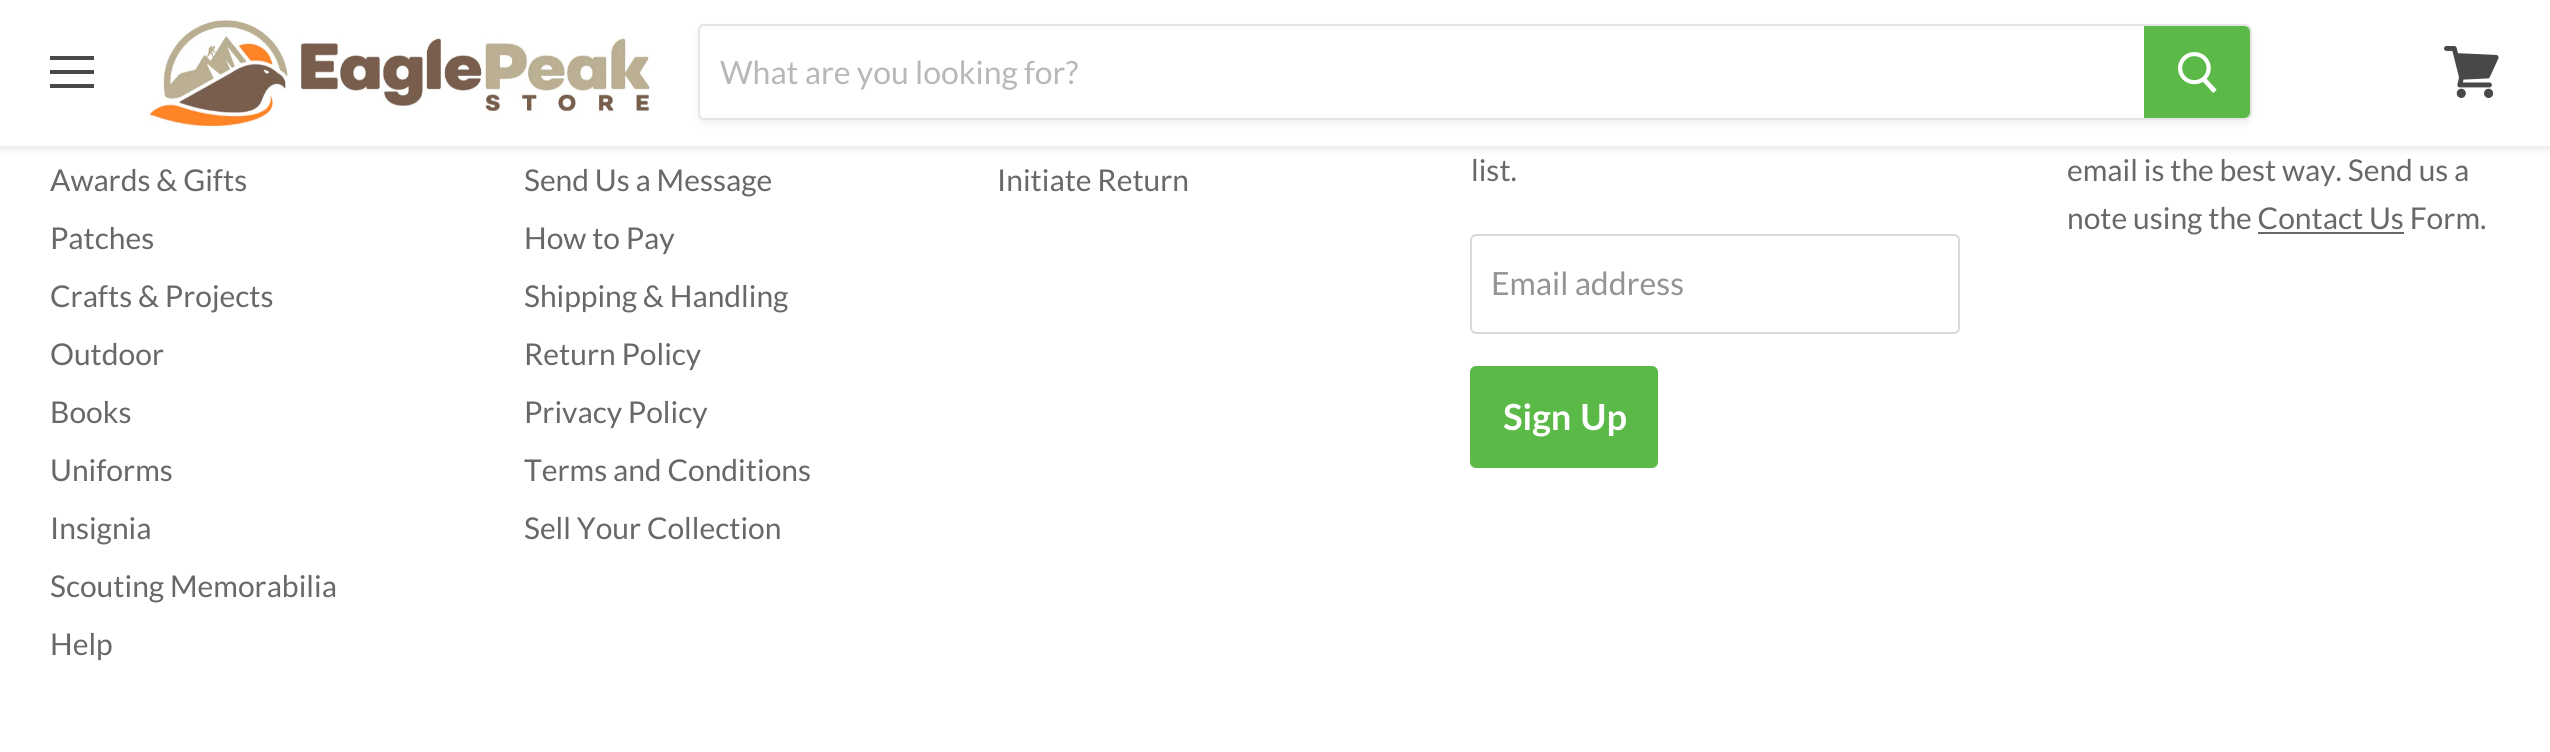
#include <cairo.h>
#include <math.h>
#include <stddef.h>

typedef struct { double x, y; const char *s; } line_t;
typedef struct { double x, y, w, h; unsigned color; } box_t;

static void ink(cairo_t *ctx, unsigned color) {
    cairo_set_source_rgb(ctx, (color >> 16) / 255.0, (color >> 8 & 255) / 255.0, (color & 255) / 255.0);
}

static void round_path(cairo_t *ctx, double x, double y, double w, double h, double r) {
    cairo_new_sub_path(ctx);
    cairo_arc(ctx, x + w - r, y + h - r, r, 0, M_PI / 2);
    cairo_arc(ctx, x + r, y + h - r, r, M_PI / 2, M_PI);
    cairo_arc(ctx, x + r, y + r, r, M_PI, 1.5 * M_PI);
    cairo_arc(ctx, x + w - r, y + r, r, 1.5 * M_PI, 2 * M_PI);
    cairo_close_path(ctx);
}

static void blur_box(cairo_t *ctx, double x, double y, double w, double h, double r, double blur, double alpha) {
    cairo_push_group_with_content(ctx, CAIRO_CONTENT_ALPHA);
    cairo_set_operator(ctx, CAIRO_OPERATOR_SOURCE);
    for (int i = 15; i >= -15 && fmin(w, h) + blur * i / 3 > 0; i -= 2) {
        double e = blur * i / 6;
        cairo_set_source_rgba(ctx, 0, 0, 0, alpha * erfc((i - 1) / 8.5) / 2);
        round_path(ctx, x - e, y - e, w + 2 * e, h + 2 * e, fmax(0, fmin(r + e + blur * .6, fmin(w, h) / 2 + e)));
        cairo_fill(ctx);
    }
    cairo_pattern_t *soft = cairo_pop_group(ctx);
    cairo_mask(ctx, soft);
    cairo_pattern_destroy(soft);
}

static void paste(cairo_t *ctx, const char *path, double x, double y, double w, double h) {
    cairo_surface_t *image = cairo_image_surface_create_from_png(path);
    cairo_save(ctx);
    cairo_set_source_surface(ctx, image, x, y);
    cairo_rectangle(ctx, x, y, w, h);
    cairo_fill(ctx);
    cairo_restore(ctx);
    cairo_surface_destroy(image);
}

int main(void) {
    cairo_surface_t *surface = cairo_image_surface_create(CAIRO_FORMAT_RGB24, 2550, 752);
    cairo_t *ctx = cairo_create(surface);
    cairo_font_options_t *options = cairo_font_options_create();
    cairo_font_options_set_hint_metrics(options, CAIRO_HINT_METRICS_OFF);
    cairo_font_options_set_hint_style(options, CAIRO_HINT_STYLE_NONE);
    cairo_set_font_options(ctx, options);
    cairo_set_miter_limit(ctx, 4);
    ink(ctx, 0xFFFFFF);
    cairo_paint(ctx);
    ink(ctx, 0x7F7F7F);
    blur_box(ctx, 0, 2, 2550, 146, 0, 4, 0.25);
    {
        static const box_t items[] = {
            {0, 0, 2550, 146, 0xFFFFFF},
            {50, 56, 44, 4, 0x484848},
            {50, 70, 44, 4, 0x484848},
            {50, 84, 44, 4, 0x484848},
        };
        for (size_t i = 0; i < sizeof items / sizeof *items; i++) {
            ink(ctx, items[i].color);
            cairo_rectangle(ctx, items[i].x, items[i].y, items[i].w, items[i].h);
            cairo_fill(ctx);
        }
    }
    paste(ctx, "media/1.png", 150, 20, 500, 106);
    cairo_save(ctx);
    cairo_set_fill_rule(ctx, CAIRO_FILL_RULE_EVEN_ODD);
    cairo_new_path(ctx);
    cairo_move_to(ctx, 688, 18);
    cairo_line_to(ctx, 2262, 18);
    cairo_line_to(ctx, 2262, 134);
    cairo_line_to(ctx, 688, 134);
    cairo_close_path(ctx);
    cairo_move_to(ctx, 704, 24);
    cairo_line_to(ctx, 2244, 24);
    cairo_curve_to(ctx, 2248.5, 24, 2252, 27.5, 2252, 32);
    cairo_line_to(ctx, 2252, 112);
    cairo_curve_to(ctx, 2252, 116.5, 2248.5, 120, 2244, 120);
    cairo_line_to(ctx, 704, 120);
    cairo_curve_to(ctx, 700.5, 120, 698, 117.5, 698, 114);
    cairo_line_to(ctx, 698, 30);
    cairo_curve_to(ctx, 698, 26.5, 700.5, 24, 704, 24);
    cairo_close_path(ctx);
    cairo_clip(ctx);
    ink(ctx, 0x7F7F7F);
    blur_box(ctx, 698, 28, 1554, 96, 8, 3, 0.11);
    cairo_restore(ctx);
    cairo_new_path(ctx);
    cairo_move_to(ctx, 704, 25);
    cairo_line_to(ctx, 2244, 25);
    cairo_curve_to(ctx, 2248, 25, 2251, 28, 2251, 32);
    cairo_line_to(ctx, 2251, 112);
    cairo_curve_to(ctx, 2251, 116, 2248, 119, 2244, 119);
    cairo_line_to(ctx, 704, 119);
    cairo_curve_to(ctx, 701, 119, 699, 117, 699, 114);
    cairo_line_to(ctx, 699, 30);
    cairo_curve_to(ctx, 699, 27, 701, 25, 704, 25);
    cairo_close_path(ctx);
    cairo_set_source_rgba(ctx, 0.498, 0.498, 0.498, 0.2);
    cairo_stroke(ctx);
    cairo_select_font_face(ctx, "Lato", CAIRO_FONT_SLANT_NORMAL, CAIRO_FONT_WEIGHT_NORMAL);
    cairo_set_font_size(ctx, 32);
    ink(ctx, 0xB8B8B8);
    cairo_move_to(ctx, 720, 84);
    cairo_show_text(ctx, "What are you looking for?");
    ink(ctx, 0x5BBA47);
    cairo_new_path(ctx);
    cairo_move_to(ctx, 2145, 27);
    cairo_line_to(ctx, 2244, 27);
    cairo_curve_to(ctx, 2247, 27, 2249, 29, 2249, 32);
    cairo_line_to(ctx, 2249, 112);
    cairo_curve_to(ctx, 2249, 115, 2247, 117, 2244, 117);
    cairo_line_to(ctx, 2145, 117);
    cairo_close_path(ctx);
    cairo_fill_preserve(ctx);
    cairo_stroke(ctx);
    paste(ctx, "media/2.png", 2178, 52, 39, 41);
    paste(ctx, "media/3.png", 2444, 46, 55, 52);
    cairo_set_font_size(ctx, 30);
    ink(ctx, 0x686868);
    {
        static const line_t items[] = {
            {50, 191, "Awards & Gifts"},
            {50, 249, "Patches"},
            {50, 307, "Crafts & Projects"},
            {50, 365, "Outdoor"},
            {50, 423, "Books"},
            {50, 481, "Uniforms"},
            {50, 539, "Insignia"},
            {50, 597, "Scouting Memorabilia"},
            {50, 655, "Help"},
            {524, 191, "Send Us a Message"},
            {524, 249, "How to Pay"},
            {524, 307, "Shipping & Handling"},
            {524, 365, "Return Policy"},
            {524, 423, "Privacy Policy"},
            {524, 481, "Terms and Conditions"},
            {524, 539, "Sell Your Collection"},
            {997, 191, "Initiate Return"},
            {1471, 181, "list."},
        };
        for (size_t i = 0; i < sizeof items / sizeof *items; i++) {
            cairo_move_to(ctx, items[i].x, items[i].y);
            cairo_show_text(ctx, items[i].s);
        }
    }
    round_path(ctx, 1471, 235, 488, 98, 5);
    ink(ctx, 0xD9D9D9);
    cairo_stroke(ctx);
    cairo_set_font_size(ctx, 32);
    ink(ctx, 0x949494);
    cairo_move_to(ctx, 1491, 295);
    cairo_show_text(ctx, "Email address");
    ink(ctx, 0x5BBA47);
    round_path(ctx, 1471, 367, 186, 100, 5);
    cairo_fill_preserve(ctx);
    cairo_stroke(ctx);
    cairo_select_font_face(ctx, "Lato", CAIRO_FONT_SLANT_NORMAL, CAIRO_FONT_WEIGHT_BOLD);
    cairo_set_font_size(ctx, 36);
    ink(ctx, 0xFFFFFF);
    cairo_move_to(ctx, 1503, 430);
    cairo_show_text(ctx, "Sign Up");
    cairo_select_font_face(ctx, "Lato", CAIRO_FONT_SLANT_NORMAL, CAIRO_FONT_WEIGHT_NORMAL);
    cairo_set_font_size(ctx, 30);
    ink(ctx, 0x686868);
    cairo_move_to(ctx, 2067, 181);
    cairo_show_text(ctx, "email is the best way. Send us a");
    cairo_move_to(ctx, 2067, 229);
    cairo_show_text(ctx, "note using the Contact Us Form.");
    cairo_rectangle(ctx, 2258, 232, 146, 2);
    cairo_fill(ctx);
    cairo_surface_write_to_png(surface, "image.png");
    cairo_font_options_destroy(options);
    cairo_destroy(ctx);
    cairo_surface_destroy(surface);
    return 0;
}
